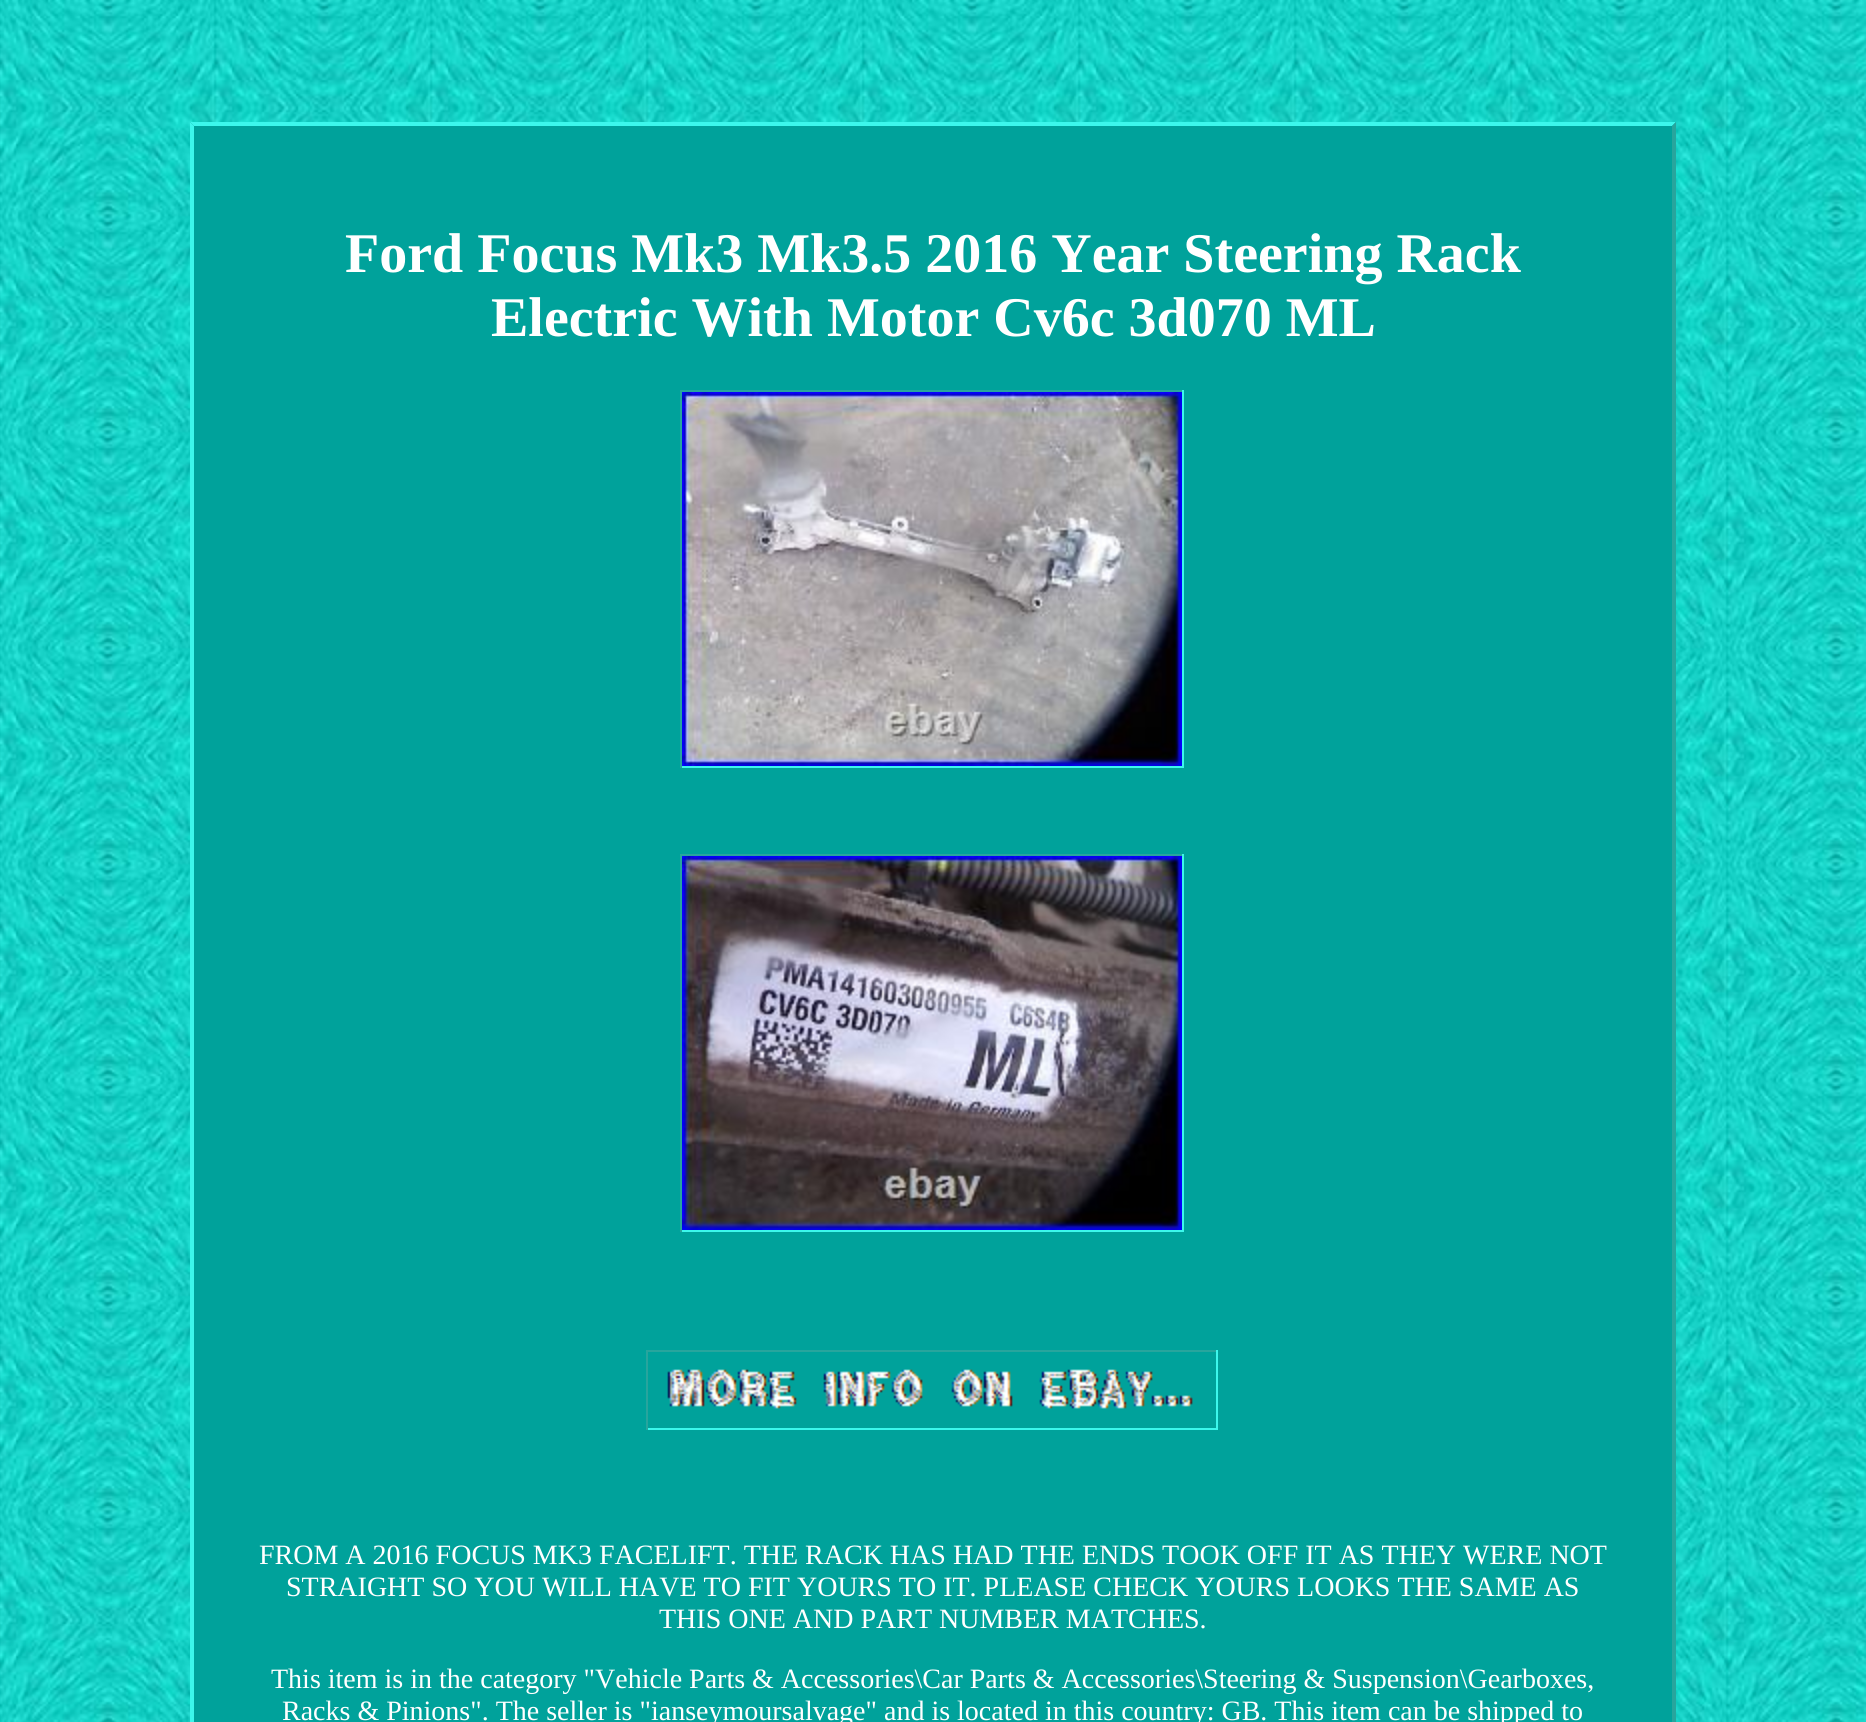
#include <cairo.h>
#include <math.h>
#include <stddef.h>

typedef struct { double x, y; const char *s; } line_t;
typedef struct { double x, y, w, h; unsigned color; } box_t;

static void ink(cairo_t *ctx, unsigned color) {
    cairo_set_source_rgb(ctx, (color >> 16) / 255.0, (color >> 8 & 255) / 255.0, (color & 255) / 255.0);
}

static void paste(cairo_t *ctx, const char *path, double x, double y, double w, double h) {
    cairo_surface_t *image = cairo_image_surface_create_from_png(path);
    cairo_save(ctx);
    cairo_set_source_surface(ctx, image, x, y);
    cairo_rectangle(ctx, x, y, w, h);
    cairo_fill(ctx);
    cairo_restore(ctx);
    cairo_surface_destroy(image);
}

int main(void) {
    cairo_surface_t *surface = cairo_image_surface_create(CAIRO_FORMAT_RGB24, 1866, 1722);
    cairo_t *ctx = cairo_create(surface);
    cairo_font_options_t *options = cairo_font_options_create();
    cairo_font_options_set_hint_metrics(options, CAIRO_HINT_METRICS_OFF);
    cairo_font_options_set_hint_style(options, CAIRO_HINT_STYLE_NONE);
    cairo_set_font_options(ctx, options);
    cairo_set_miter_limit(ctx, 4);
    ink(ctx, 0xFFFFFF);
    cairo_paint(ctx);
    paste(ctx, "media/1.png", 0, 0, 1866, 1722);
    ink(ctx, 0x00A29B);
    cairo_rectangle(ctx, 190, 122, 1486, 1600);
    cairo_fill(ctx);
    ink(ctx, 0x3CF7EC);
    cairo_new_path(ctx);
    cairo_move_to(ctx, 190, 122);
    cairo_line_to(ctx, 1676, 122);
    cairo_line_to(ctx, 1672, 126);
    cairo_line_to(ctx, 194, 126);
    cairo_close_path(ctx);
    cairo_fill(ctx);
    ink(ctx, 0x28A59D);
    cairo_new_path(ctx);
    cairo_move_to(ctx, 1676, 122);
    cairo_line_to(ctx, 1676, 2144);
    cairo_line_to(ctx, 1672, 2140);
    cairo_line_to(ctx, 1672, 126);
    cairo_close_path(ctx);
    cairo_fill(ctx);
    ink(ctx, 0x3CF7EC);
    cairo_new_path(ctx);
    cairo_move_to(ctx, 190, 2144);
    cairo_line_to(ctx, 190, 122);
    cairo_line_to(ctx, 194, 126);
    cairo_line_to(ctx, 194, 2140);
    cairo_close_path(ctx);
    cairo_fill(ctx);
    cairo_select_font_face(ctx, "Liberation Serif", CAIRO_FONT_SLANT_NORMAL, CAIRO_FONT_WEIGHT_BOLD);
    cairo_set_font_size(ctx, 56);
    ink(ctx, 0xFFFFFF);
    cairo_move_to(ctx, 345, 272);
    cairo_show_text(ctx, "Ford Focus Mk3 Mk3.5 2016 Year Steering Rack");
    cairo_move_to(ctx, 491, 336);
    cairo_show_text(ctx, "Electric With Motor Cv6c 3d070 ML");
    {
        static const box_t items[] = {
            {680, 390, 504, 2, 0x28A59D},
            {1182, 390, 2, 378, 0x3CF7EC},
            {680, 766, 504, 2, 0x3CF7EC},
            {680, 390, 2, 378, 0x28A59D},
        };
        for (size_t i = 0; i < sizeof items / sizeof *items; i++) {
            ink(ctx, items[i].color);
            cairo_rectangle(ctx, items[i].x, items[i].y, items[i].w, items[i].h);
            cairo_fill(ctx);
        }
    }
    paste(ctx, "media/2.png", 682, 392, 500, 374);
    {
        static const box_t items[] = {
            {680, 854, 504, 2, 0x28A59D},
            {1182, 854, 2, 378, 0x3CF7EC},
            {680, 1230, 504, 2, 0x3CF7EC},
            {680, 854, 2, 378, 0x28A59D},
        };
        for (size_t i = 0; i < sizeof items / sizeof *items; i++) {
            ink(ctx, items[i].color);
            cairo_rectangle(ctx, items[i].x, items[i].y, items[i].w, items[i].h);
            cairo_fill(ctx);
        }
    }
    paste(ctx, "media/3.png", 682, 856, 500, 374);
    {
        static const box_t items[] = {
            {646, 1350, 572, 2, 0x28A59D},
            {1216, 1350, 2, 80, 0x3CF7EC},
            {646, 1428, 572, 2, 0x3CF7EC},
            {646, 1350, 2, 80, 0x28A59D},
        };
        for (size_t i = 0; i < sizeof items / sizeof *items; i++) {
            ink(ctx, items[i].color);
            cairo_rectangle(ctx, items[i].x, items[i].y, items[i].w, items[i].h);
            cairo_fill(ctx);
        }
    }
    paste(ctx, "media/4.png", 667, 1369, 526, 40);
    cairo_select_font_face(ctx, "Liberation Serif", CAIRO_FONT_SLANT_NORMAL, CAIRO_FONT_WEIGHT_NORMAL);
    cairo_set_font_size(ctx, 28);
    ink(ctx, 0xFFFFFF);
    {
        static const line_t items[] = {
            {259, 1564, "FROM A 2016 FOCUS MK3 FACELIFT. THE RACK HAS HAD THE ENDS TOOK OFF IT AS THEY WERE NOT"},
            {286, 1596, "STRAIGHT SO YOU WILL HAVE TO FIT YOURS TO IT. PLEASE CHECK YOURS LOOKS THE SAME AS"},
            {659, 1628, "THIS ONE AND PART NUMBER MATCHES."},
            {271, 1688, "This item is in the category \"Vehicle Parts & Accessories\\Car Parts & Accessories\\Steering & Suspension\\Gearboxes,"},
            {282, 1720, "Racks & Pinions\". The seller is \"ianseymoursalvage\" and is located in this country: GB. This item can be shipped to"},
        };
        for (size_t i = 0; i < sizeof items / sizeof *items; i++) {
            cairo_move_to(ctx, items[i].x, items[i].y);
            cairo_show_text(ctx, items[i].s);
        }
    }
    cairo_surface_write_to_png(surface, "image.png");
    cairo_font_options_destroy(options);
    cairo_destroy(ctx);
    cairo_surface_destroy(surface);
    return 0;
}
